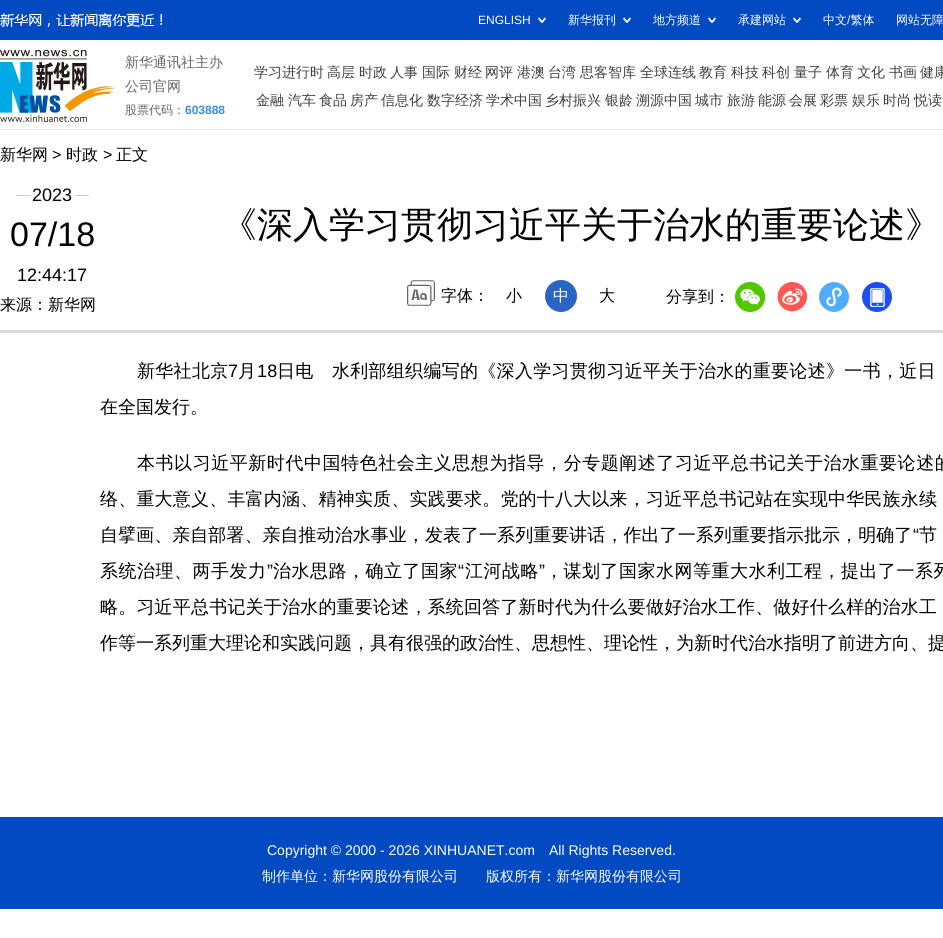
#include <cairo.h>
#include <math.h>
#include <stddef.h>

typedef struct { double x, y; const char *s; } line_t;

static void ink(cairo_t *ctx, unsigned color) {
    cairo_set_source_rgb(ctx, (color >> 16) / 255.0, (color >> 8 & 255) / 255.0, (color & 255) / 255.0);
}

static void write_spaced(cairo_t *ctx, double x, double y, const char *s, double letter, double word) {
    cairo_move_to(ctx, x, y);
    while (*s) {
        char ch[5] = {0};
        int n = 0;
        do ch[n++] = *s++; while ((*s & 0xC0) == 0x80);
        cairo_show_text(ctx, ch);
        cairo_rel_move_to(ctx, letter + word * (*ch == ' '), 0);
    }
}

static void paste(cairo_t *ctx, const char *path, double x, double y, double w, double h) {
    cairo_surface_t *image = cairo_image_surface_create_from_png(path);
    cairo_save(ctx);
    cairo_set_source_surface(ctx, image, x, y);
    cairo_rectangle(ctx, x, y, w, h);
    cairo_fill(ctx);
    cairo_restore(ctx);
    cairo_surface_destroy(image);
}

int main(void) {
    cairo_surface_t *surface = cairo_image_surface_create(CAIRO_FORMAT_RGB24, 943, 938);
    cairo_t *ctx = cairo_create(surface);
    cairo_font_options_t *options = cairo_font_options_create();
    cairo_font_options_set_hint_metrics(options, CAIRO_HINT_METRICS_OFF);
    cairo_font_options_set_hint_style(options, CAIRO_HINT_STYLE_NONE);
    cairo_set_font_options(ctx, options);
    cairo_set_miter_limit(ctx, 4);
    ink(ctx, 0xFFFFFF);
    cairo_paint(ctx);
    ink(ctx, 0x024AC2);
    cairo_rectangle(ctx, 0, 0, 943, 40);
    cairo_fill(ctx);
    paste(ctx, "media/1.png", 0, 13, 163, 14);
    cairo_select_font_face(ctx, "Liberation Sans", CAIRO_FONT_SLANT_NORMAL, CAIRO_FONT_WEIGHT_NORMAL);
    cairo_set_font_size(ctx, 12);
    ink(ctx, 0xFFFFFF);
    cairo_move_to(ctx, 478, 24);
    cairo_show_text(ctx, "ENGLISH");
    paste(ctx, "media/2.png", 538, 17, 8, 6);
    cairo_select_font_face(ctx, "WenQuanYi Zen Hei Medium", CAIRO_FONT_SLANT_NORMAL, CAIRO_FONT_WEIGHT_NORMAL);
    cairo_move_to(ctx, 568, 24);
    cairo_show_text(ctx, "新华报刊");
    paste(ctx, "media/2.png", 623, 17, 8, 6);
    cairo_move_to(ctx, 653, 24);
    cairo_show_text(ctx, "地方频道");
    paste(ctx, "media/2.png", 708, 17, 8, 6);
    cairo_move_to(ctx, 738, 24);
    cairo_show_text(ctx, "承建网站");
    paste(ctx, "media/2.png", 793, 17, 8, 6);
    cairo_move_to(ctx, 823, 24);
    cairo_show_text(ctx, "中文 繁体");
    cairo_select_font_face(ctx, "Liberation Sans", CAIRO_FONT_SLANT_NORMAL, CAIRO_FONT_WEIGHT_NORMAL);
    cairo_move_to(ctx, 847, 24);
    cairo_show_text(ctx, "/");
    cairo_select_font_face(ctx, "WenQuanYi Zen Hei Medium", CAIRO_FONT_SLANT_NORMAL, CAIRO_FONT_WEIGHT_NORMAL);
    cairo_move_to(ctx, 896, 24);
    cairo_show_text(ctx, "网站无障");
    ink(ctx, 0xE4E4E4);
    cairo_rectangle(ctx, 0, 129, 943, 1);
    cairo_fill(ctx);
    paste(ctx, "media/3.png", 0, 50, 115, 72);
    cairo_set_font_size(ctx, 14);
    ink(ctx, 0x666666);
    cairo_move_to(ctx, 125, 67);
    cairo_show_text(ctx, "新华通讯社主办");
    cairo_move_to(ctx, 125, 91);
    cairo_show_text(ctx, "公司官网");
    cairo_set_font_size(ctx, 12);
    cairo_move_to(ctx, 125, 114);
    cairo_show_text(ctx, "股票代码：");
    cairo_select_font_face(ctx, "Liberation Sans", CAIRO_FONT_SLANT_NORMAL, CAIRO_FONT_WEIGHT_BOLD);
    ink(ctx, 0x378DE4);
    cairo_move_to(ctx, 185, 114);
    cairo_show_text(ctx, "603888");
    cairo_select_font_face(ctx, "WenQuanYi Zen Hei Medium", CAIRO_FONT_SLANT_NORMAL, CAIRO_FONT_WEIGHT_NORMAL);
    cairo_set_font_size(ctx, 14);
    ink(ctx, 0x404040);
    {
        static const line_t items[] = {
            {254, 77, "学习进行时"},
            {327, 77, "高层"},
            {359, 77, "时政"},
            {390, 77, "人事"},
            {422, 77, "国际"},
            {454, 77, "财经"},
            {485, 77, "网评"},
            {517, 77, "港澳"},
            {548, 77, "台湾"},
            {580, 77, "思客智库"},
            {640, 77, "全球连线"},
            {699, 77, "教育"},
            {731, 77, "科技"},
            {762, 77, "科创"},
            {794, 77, "量子"},
            {826, 77, "体育"},
            {857, 77, "文化"},
            {889, 77, "书画"},
            {920, 77, "健康"},
            {256, 105, "金融"},
            {288, 105, "汽车"},
            {319, 105, "食品"},
            {350, 105, "房产"},
            {381, 105, "信息化"},
            {427, 105, "数字经济"},
            {486, 105, "学术中国"},
            {545, 105, "乡村振兴"},
            {605, 105, "银龄"},
            {636, 105, "溯源中国"},
            {695, 105, "城市"},
            {727, 105, "旅游"},
            {758, 105, "能源"},
            {789, 105, "会展"},
            {820, 105, "彩票"},
            {852, 105, "娱乐"},
            {883, 105, "时尚"},
            {914, 105, "悦读"},
        };
        for (size_t i = 0; i < sizeof items / sizeof *items; i++) {
            cairo_move_to(ctx, items[i].x, items[i].y);
            cairo_show_text(ctx, items[i].s);
        }
    }
    ink(ctx, 0xD9D9D9);
    cairo_rectangle(ctx, 0, 330, 943, 3);
    cairo_fill(ctx);
    cairo_set_font_size(ctx, 16);
    ink(ctx, 0x000000);
    cairo_move_to(ctx, 0, 160);
    cairo_show_text(ctx, "新华网");
    cairo_select_font_face(ctx, "Liberation Sans", CAIRO_FONT_SLANT_NORMAL, CAIRO_FONT_WEIGHT_NORMAL);
    cairo_move_to(ctx, 52, 160);
    cairo_show_text(ctx, ">");
    cairo_select_font_face(ctx, "WenQuanYi Zen Hei Medium", CAIRO_FONT_SLANT_NORMAL, CAIRO_FONT_WEIGHT_NORMAL);
    cairo_move_to(ctx, 66, 160);
    cairo_show_text(ctx, "时政");
    cairo_select_font_face(ctx, "Liberation Sans", CAIRO_FONT_SLANT_NORMAL, CAIRO_FONT_WEIGHT_NORMAL);
    cairo_move_to(ctx, 103, 160);
    cairo_show_text(ctx, ">");
    cairo_select_font_face(ctx, "WenQuanYi Zen Hei Medium", CAIRO_FONT_SLANT_NORMAL, CAIRO_FONT_WEIGHT_NORMAL);
    cairo_move_to(ctx, 116, 160);
    cairo_show_text(ctx, "正文");
    ink(ctx, 0xCCCCCC);
    cairo_rectangle(ctx, 16, 195, 73, 1);
    cairo_fill(ctx);
    ink(ctx, 0xFFFFFF);
    cairo_rectangle(ctx, 30, 195, 45, 1);
    cairo_fill(ctx);
    cairo_select_font_face(ctx, "Liberation Sans", CAIRO_FONT_SLANT_NORMAL, CAIRO_FONT_WEIGHT_NORMAL);
    cairo_set_font_size(ctx, 18);
    ink(ctx, 0x000000);
    cairo_move_to(ctx, 32, 201);
    cairo_show_text(ctx, "2023");
    cairo_set_font_size(ctx, 34);
    cairo_move_to(ctx, 10, 246);
    cairo_show_text(ctx, "07/18");
    cairo_set_font_size(ctx, 18);
    cairo_move_to(ctx, 17, 281);
    cairo_show_text(ctx, "12:44:17");
    cairo_select_font_face(ctx, "WenQuanYi Zen Hei Medium", CAIRO_FONT_SLANT_NORMAL, CAIRO_FONT_WEIGHT_NORMAL);
    cairo_set_font_size(ctx, 36);
    cairo_move_to(ctx, 221, 237);
    cairo_show_text(ctx, "《深入学习贯彻习近平关于治水的重要论述》");
    paste(ctx, "media/4.png", 407, 280, 28, 26);
    cairo_set_font_size(ctx, 16);
    cairo_move_to(ctx, 441, 301);
    cairo_show_text(ctx, "字体：");
    cairo_move_to(ctx, 506, 301);
    cairo_show_text(ctx, "小");
    ink(ctx, 0x2C64C3);
    cairo_new_path(ctx);
    cairo_arc(ctx, 561, 296, 16, 0, 2 * M_PI);
    cairo_fill(ctx);
    ink(ctx, 0xFFFFFF);
    cairo_move_to(ctx, 553, 301);
    cairo_show_text(ctx, "中");
    ink(ctx, 0x000000);
    cairo_move_to(ctx, 599, 301);
    cairo_show_text(ctx, "大");
    cairo_move_to(ctx, 666, 302);
    cairo_show_text(ctx, "分享到：");
    paste(ctx, "media/5.png", 735, 282, 31, 30);
    paste(ctx, "media/6.png", 777, 282, 30, 30);
    paste(ctx, "media/7.png", 819, 282, 30, 30);
    paste(ctx, "media/8.png", 862, 282, 30, 30);
    cairo_move_to(ctx, 0, 310);
    cairo_show_text(ctx, "来源：新华网");
    cairo_set_font_size(ctx, 18);
    write_spaced(ctx, 137, 377, "新华社北京", 0.3, 0);
    cairo_select_font_face(ctx, "Liberation Sans", CAIRO_FONT_SLANT_NORMAL, CAIRO_FONT_WEIGHT_NORMAL);
    write_spaced(ctx, 228, 377, "7", 0.3, 0);
    cairo_select_font_face(ctx, "WenQuanYi Zen Hei Medium", CAIRO_FONT_SLANT_NORMAL, CAIRO_FONT_WEIGHT_NORMAL);
    write_spaced(ctx, 238, 377, "月", 0.3, 0);
    cairo_select_font_face(ctx, "Liberation Sans", CAIRO_FONT_SLANT_NORMAL, CAIRO_FONT_WEIGHT_NORMAL);
    write_spaced(ctx, 257, 377, "18", 0.3, 0);
    cairo_select_font_face(ctx, "WenQuanYi Zen Hei Medium", CAIRO_FONT_SLANT_NORMAL, CAIRO_FONT_WEIGHT_NORMAL);
    write_spaced(ctx, 277, 377, "日电　水利部组织编写的《深入学习贯彻习近平关于治水的重要论述》一书，近日", 0.3, 0);
    cairo_move_to(ctx, 100, 413);
    cairo_show_text(ctx, "在全国发行。");
    write_spaced(ctx, 137, 469, "本书以习近平新时代中国特色社会主义思想为指导，分专题阐述了习近平总书记关于治水重要论述的", 0.55, 0);
    write_spaced(ctx, 100, 505, "络、重大意义、丰富内涵、精神实质、实践要求。党的十八大以来，习近平总书记站在实现中华民族永续", 0.2, 0);
    write_spaced(ctx, 100, 541, "自擘画、亲自部署、亲自推动治水事业，发表了一系列重要讲话，作出了一系列重要指示批示，明确了", 0.05, 0);
    cairo_select_font_face(ctx, "Liberation Sans", CAIRO_FONT_SLANT_NORMAL, CAIRO_FONT_WEIGHT_NORMAL);
    write_spaced(ctx, 913, 541, "“", 0.05, 0);
    cairo_select_font_face(ctx, "WenQuanYi Zen Hei Medium", CAIRO_FONT_SLANT_NORMAL, CAIRO_FONT_WEIGHT_NORMAL);
    write_spaced(ctx, 919, 541, "节", 0.05, 0);
    write_spaced(ctx, 100, 577, "系统治理、两手发力", 0.5, 0);
    cairo_select_font_face(ctx, "Liberation Sans", CAIRO_FONT_SLANT_NORMAL, CAIRO_FONT_WEIGHT_NORMAL);
    write_spaced(ctx, 267, 577, "”", 0.5, 0);
    cairo_select_font_face(ctx, "WenQuanYi Zen Hei Medium", CAIRO_FONT_SLANT_NORMAL, CAIRO_FONT_WEIGHT_NORMAL);
    write_spaced(ctx, 273, 577, "治水思路，确立了国家", 0.5, 0);
    cairo_select_font_face(ctx, "Liberation Sans", CAIRO_FONT_SLANT_NORMAL, CAIRO_FONT_WEIGHT_NORMAL);
    write_spaced(ctx, 458, 577, "“", 0.5, 0);
    cairo_select_font_face(ctx, "WenQuanYi Zen Hei Medium", CAIRO_FONT_SLANT_NORMAL, CAIRO_FONT_WEIGHT_NORMAL);
    write_spaced(ctx, 465, 577, "江河战略", 0.5, 0);
    cairo_select_font_face(ctx, "Liberation Sans", CAIRO_FONT_SLANT_NORMAL, CAIRO_FONT_WEIGHT_NORMAL);
    write_spaced(ctx, 539, 577, "”", 0.5, 0);
    cairo_select_font_face(ctx, "WenQuanYi Zen Hei Medium", CAIRO_FONT_SLANT_NORMAL, CAIRO_FONT_WEIGHT_NORMAL);
    write_spaced(ctx, 545, 577, "，谋划了国家水网等重大水利工程，提出了一系列", 0.5, 0);
    write_spaced(ctx, 100, 613, "略。习近平总书记关于治水的重要论述，系统回答了新时代为什么要做好治水工作、做好什么样的治水工", 0.2, 0);
    cairo_move_to(ctx, 100, 649);
    cairo_show_text(ctx, "作等一系列重大理论和实践问题，具有很强的政治性、思想性、理论性，为新时代治水指明了前进方向、提");
    ink(ctx, 0x024AC2);
    cairo_rectangle(ctx, 0, 817, 943, 92);
    cairo_fill(ctx);
    cairo_select_font_face(ctx, "Liberation Sans", CAIRO_FONT_SLANT_NORMAL, CAIRO_FONT_WEIGHT_NORMAL);
    cairo_set_font_size(ctx, 14);
    ink(ctx, 0xFFFFFF);
    cairo_move_to(ctx, 267, 855);
    cairo_show_text(ctx, "Copyright © 2000 - 2026 XINHUANET.com");
    cairo_move_to(ctx, 549, 855);
    cairo_show_text(ctx, "All Rights Reserved.");
    cairo_select_font_face(ctx, "WenQuanYi Zen Hei Medium", CAIRO_FONT_SLANT_NORMAL, CAIRO_FONT_WEIGHT_NORMAL);
    cairo_move_to(ctx, 262, 881);
    cairo_show_text(ctx, "制作单位：新华网股份有限公司　　版权所有：新华网股份有限公司");
    cairo_surface_write_to_png(surface, "image.png");
    cairo_font_options_destroy(options);
    cairo_destroy(ctx);
    cairo_surface_destroy(surface);
    return 0;
}
